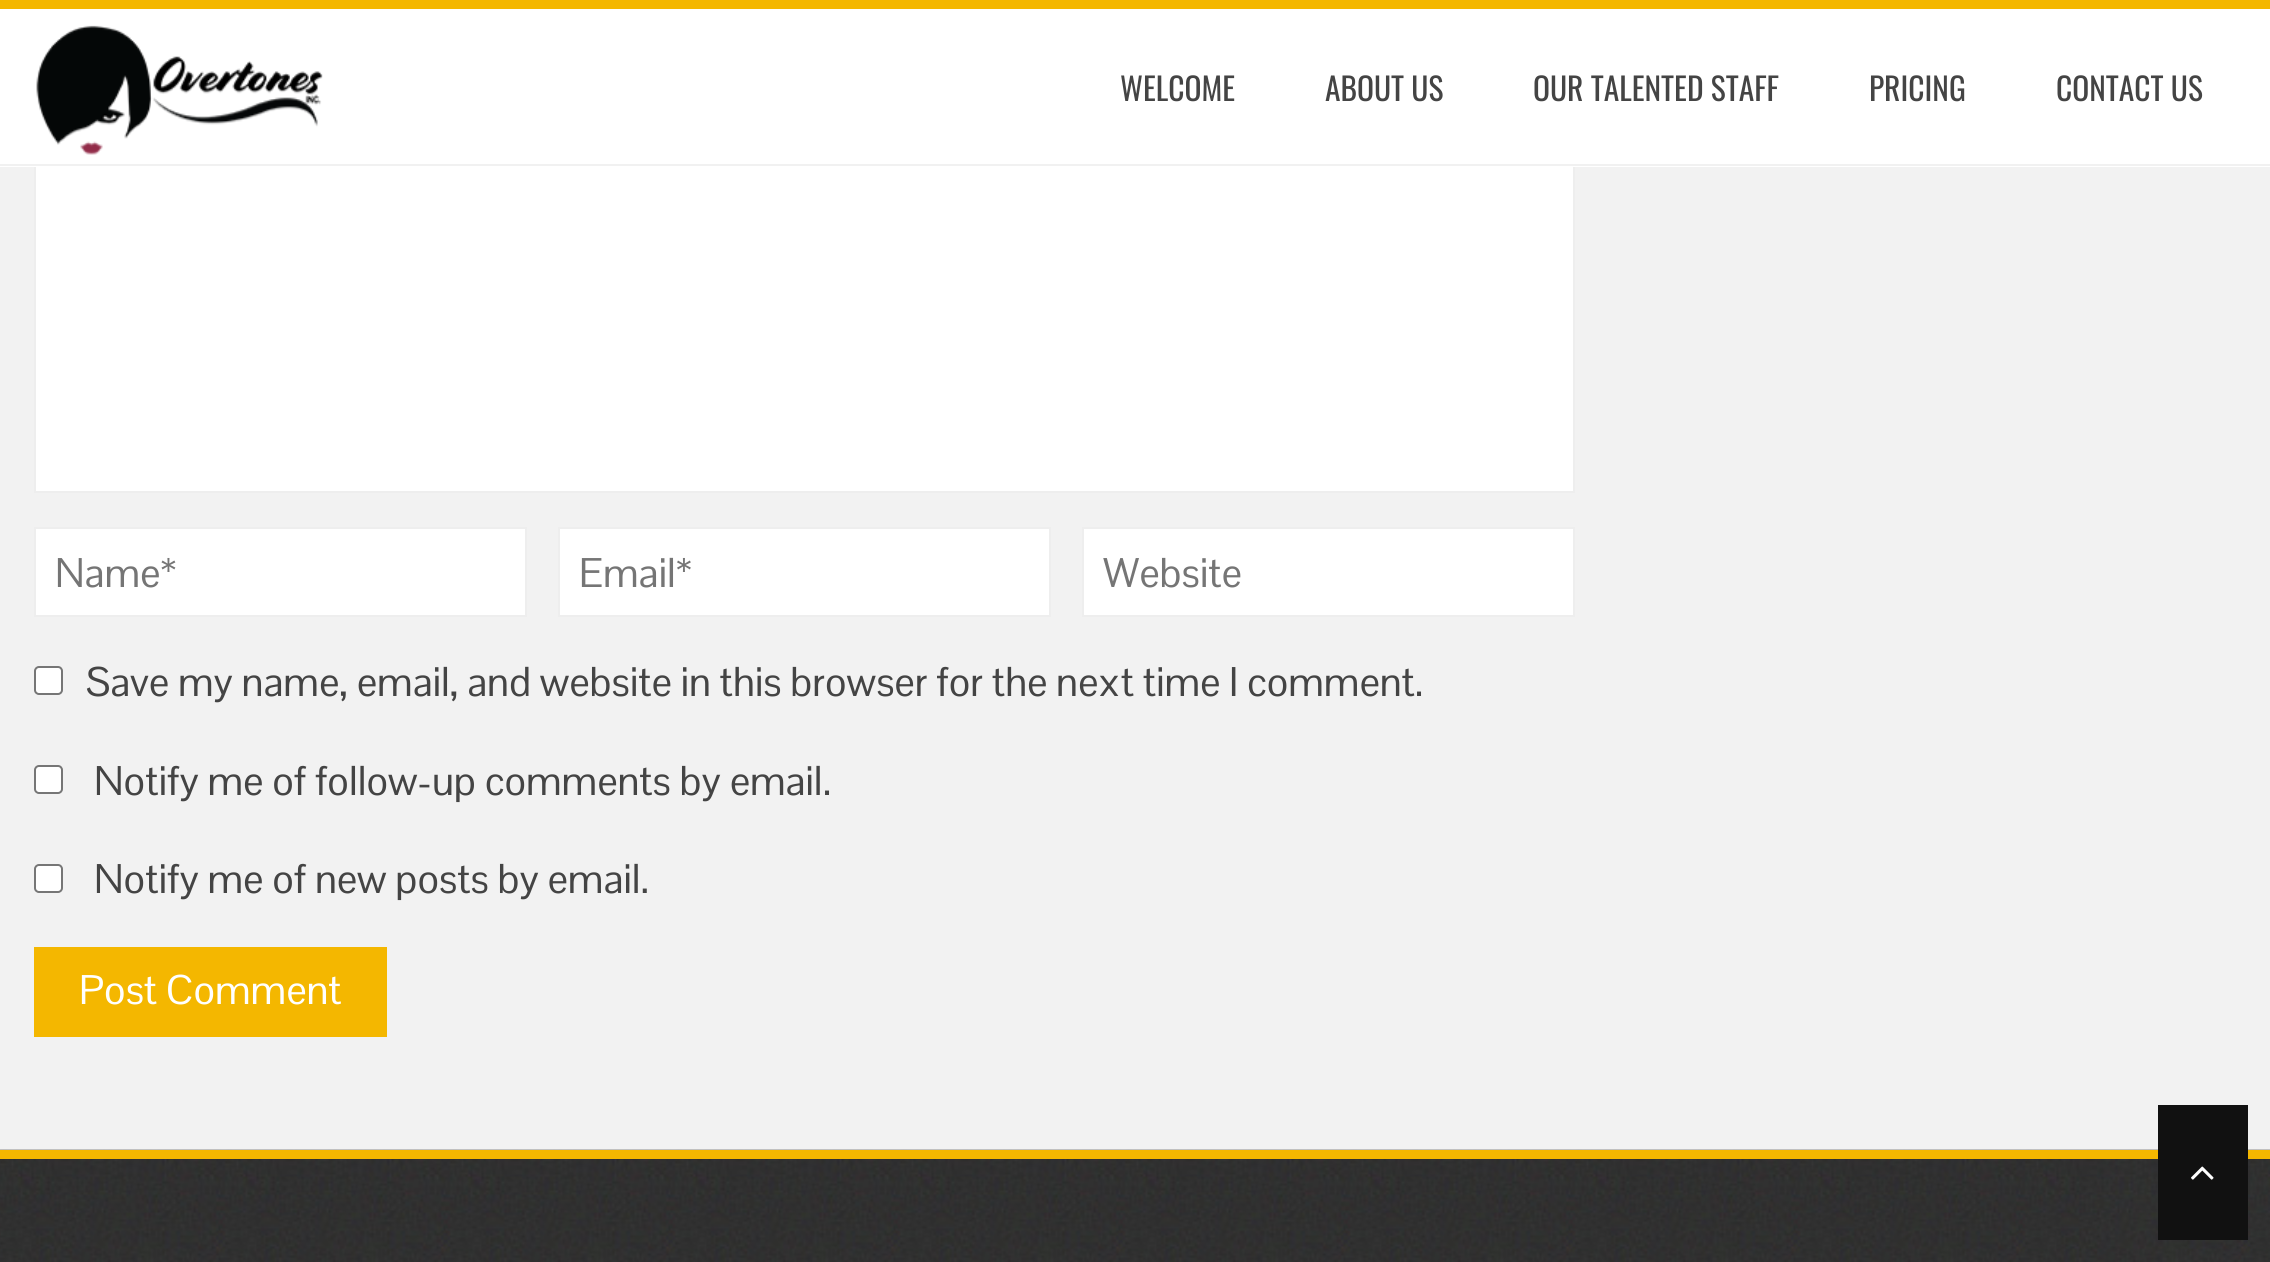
#include <cairo.h>
#include <math.h>
#include <stddef.h>

typedef struct { double x, y; const char *s; } line_t;
typedef struct { double x, y, w, h; unsigned color; } box_t;

static void ink(cairo_t *ctx, unsigned color) {
    cairo_set_source_rgb(ctx, (color >> 16) / 255.0, (color >> 8 & 255) / 255.0, (color & 255) / 255.0);
}

static void round_path(cairo_t *ctx, double x, double y, double w, double h, double r) {
    cairo_new_sub_path(ctx);
    cairo_arc(ctx, x + w - r, y + h - r, r, 0, M_PI / 2);
    cairo_arc(ctx, x + r, y + h - r, r, M_PI / 2, M_PI);
    cairo_arc(ctx, x + r, y + r, r, M_PI, 1.5 * M_PI);
    cairo_arc(ctx, x + w - r, y + r, r, 1.5 * M_PI, 2 * M_PI);
    cairo_close_path(ctx);
}

static void paste(cairo_t *ctx, const char *path, double x, double y, double w, double h) {
    cairo_surface_t *image = cairo_image_surface_create_from_png(path);
    cairo_save(ctx);
    cairo_set_source_surface(ctx, image, x, y);
    cairo_rectangle(ctx, x, y, w, h);
    cairo_fill(ctx);
    cairo_restore(ctx);
    cairo_surface_destroy(image);
}

int main(void) {
    cairo_surface_t *surface = cairo_image_surface_create(CAIRO_FORMAT_RGB24, 2270, 1262);
    cairo_t *ctx = cairo_create(surface);
    cairo_font_options_t *options = cairo_font_options_create();
    cairo_font_options_set_hint_metrics(options, CAIRO_HINT_METRICS_OFF);
    cairo_font_options_set_hint_style(options, CAIRO_HINT_STYLE_NONE);
    cairo_set_font_options(ctx, options);
    cairo_set_miter_limit(ctx, 4);
    ink(ctx, 0xF2F2F2);
    cairo_paint(ctx);
    ink(ctx, 0xFFFFFF);
    cairo_rectangle(ctx, 36, 167, 1537, 324);
    cairo_fill(ctx);
    cairo_rectangle(ctx, 35, -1, 1539, 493);
    ink(ctx, 0xEEEEEE);
    cairo_stroke(ctx);
    {
        static const box_t items[] = {
            {0, 9, 2270, 158, 0xFFFFFF},
            {0, 0, 2270, 9, 0xF4B700},
            {0, 164, 2270, 2, 0xF1F1F1},
        };
        for (size_t i = 0; i < sizeof items / sizeof *items; i++) {
            ink(ctx, items[i].color);
            cairo_rectangle(ctx, items[i].x, items[i].y, items[i].w, items[i].h);
            cairo_fill(ctx);
        }
    }
    paste(ctx, "media/1.png", 36, 25, 287, 130);
    cairo_select_font_face(ctx, "Oswald", CAIRO_FONT_SLANT_NORMAL, CAIRO_FONT_WEIGHT_NORMAL);
    cairo_set_font_size(ctx, 31.5);
    ink(ctx, 0x444444);
    {
        static const line_t items[] = {
            {1120, 101, "WELCOME"},
            {1325, 101, "ABOUT US"},
            {1533, 101, "OUR TALENTED STAFF"},
            {1869, 101, "PRICING"},
            {2056, 101, "CONTACT US"},
        };
        for (size_t i = 0; i < sizeof items / sizeof *items; i++) {
            cairo_move_to(ctx, items[i].x, items[i].y);
            cairo_show_text(ctx, items[i].s);
        }
    }
    ink(ctx, 0xFFFFFF);
    cairo_rectangle(ctx, 35, 528, 491, 88);
    cairo_fill_preserve(ctx);
    ink(ctx, 0xEEEEEE);
    cairo_stroke(ctx);
    cairo_select_font_face(ctx, "Pontano Sans", CAIRO_FONT_SLANT_NORMAL, CAIRO_FONT_WEIGHT_NORMAL);
    cairo_set_font_size(ctx, 40.5);
    ink(ctx, 0x757575);
    cairo_move_to(ctx, 55, 587);
    cairo_show_text(ctx, "Name*");
    ink(ctx, 0xFFFFFF);
    cairo_rectangle(ctx, 559, 528, 491, 88);
    cairo_fill_preserve(ctx);
    ink(ctx, 0xEEEEEE);
    cairo_stroke(ctx);
    ink(ctx, 0x757575);
    cairo_move_to(ctx, 579, 587);
    cairo_show_text(ctx, "Email*");
    ink(ctx, 0xFFFFFF);
    cairo_rectangle(ctx, 1083, 528, 491, 88);
    cairo_fill_preserve(ctx);
    ink(ctx, 0xEEEEEE);
    cairo_stroke(ctx);
    ink(ctx, 0x757575);
    cairo_move_to(ctx, 1103, 587);
    cairo_show_text(ctx, "Website");
    ink(ctx, 0xFFFFFF);
    round_path(ctx, 35, 667, 27, 27, 4);
    cairo_fill_preserve(ctx);
    ink(ctx, 0x767676);
    cairo_stroke(ctx);
    ink(ctx, 0x444444);
    cairo_move_to(ctx, 86, 696);
    cairo_show_text(ctx, "Save my name, email, and website in this browser for the next time I comment.");
    ink(ctx, 0xFFFFFF);
    round_path(ctx, 35, 766, 27, 27, 4);
    cairo_fill_preserve(ctx);
    ink(ctx, 0x767676);
    cairo_stroke(ctx);
    ink(ctx, 0x444444);
    cairo_move_to(ctx, 94, 795);
    cairo_show_text(ctx, "Notify me of follow-up comments by email.");
    ink(ctx, 0xFFFFFF);
    round_path(ctx, 35, 865, 27, 27, 4);
    cairo_fill_preserve(ctx);
    ink(ctx, 0x767676);
    cairo_stroke(ctx);
    ink(ctx, 0x444444);
    cairo_move_to(ctx, 94, 893);
    cairo_show_text(ctx, "Notify me of new posts by email.");
    ink(ctx, 0xF4B700);
    cairo_rectangle(ctx, 34, 947, 353, 90);
    cairo_fill(ctx);
    ink(ctx, 0xFFFFFF);
    cairo_move_to(ctx, 79, 1004);
    cairo_show_text(ctx, "Post Comment");
    paste(ctx, "media/2.png", 0, 1149, 2270, 113);
    ink(ctx, 0xF4B700);
    cairo_rectangle(ctx, 0, 1150, 2270, 9);
    cairo_fill(ctx);
    ink(ctx, 0x111111);
    cairo_rectangle(ctx, 2158, 1105, 90, 135);
    cairo_fill(ctx);
    paste(ctx, "media/3.png", 2191, 1166, 23, 14);
    cairo_surface_write_to_png(surface, "image.png");
    cairo_font_options_destroy(options);
    cairo_destroy(ctx);
    cairo_surface_destroy(surface);
    return 0;
}
